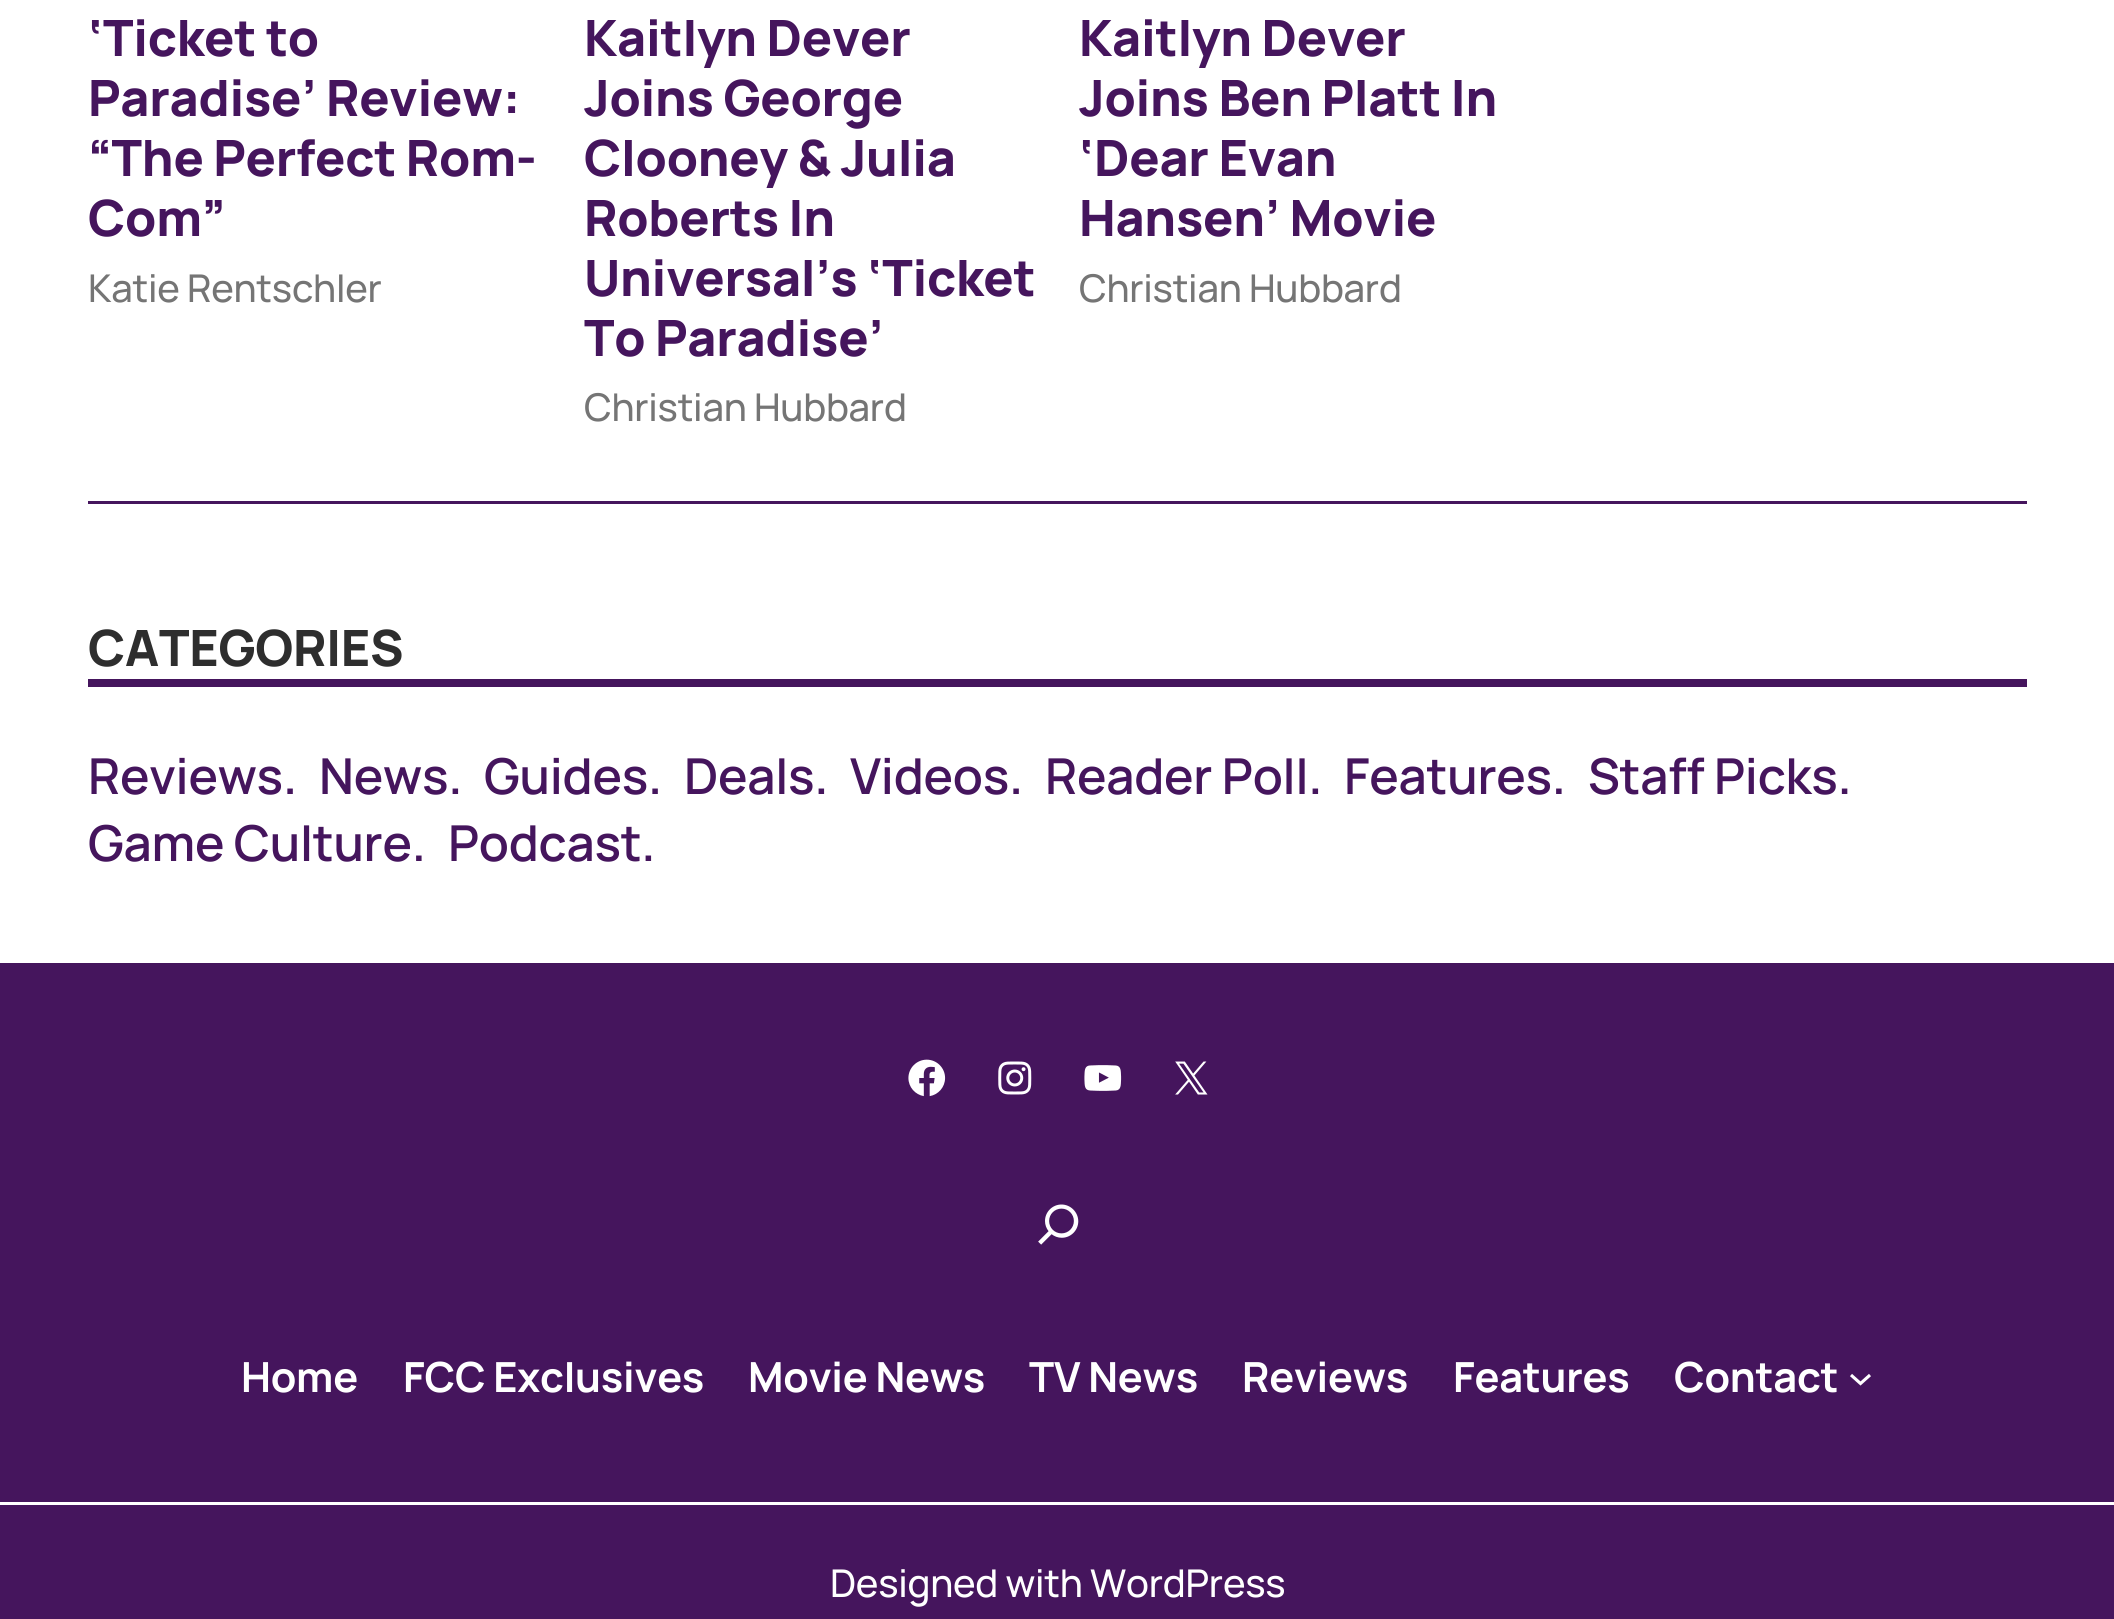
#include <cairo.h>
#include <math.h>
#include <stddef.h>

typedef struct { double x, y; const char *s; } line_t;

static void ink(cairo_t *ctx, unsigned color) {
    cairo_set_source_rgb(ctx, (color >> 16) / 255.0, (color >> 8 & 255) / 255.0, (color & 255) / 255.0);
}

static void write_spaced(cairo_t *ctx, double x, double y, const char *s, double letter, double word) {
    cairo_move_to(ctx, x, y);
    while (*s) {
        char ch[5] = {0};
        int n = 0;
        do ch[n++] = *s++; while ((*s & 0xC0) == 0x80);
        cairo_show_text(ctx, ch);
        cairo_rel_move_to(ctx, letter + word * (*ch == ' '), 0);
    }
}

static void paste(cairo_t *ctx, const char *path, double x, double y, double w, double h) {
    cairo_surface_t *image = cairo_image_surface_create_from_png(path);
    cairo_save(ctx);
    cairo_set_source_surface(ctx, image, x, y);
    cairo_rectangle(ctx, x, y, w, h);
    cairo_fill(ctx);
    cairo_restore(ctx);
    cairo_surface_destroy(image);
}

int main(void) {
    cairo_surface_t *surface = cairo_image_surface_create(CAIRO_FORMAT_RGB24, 2114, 1619);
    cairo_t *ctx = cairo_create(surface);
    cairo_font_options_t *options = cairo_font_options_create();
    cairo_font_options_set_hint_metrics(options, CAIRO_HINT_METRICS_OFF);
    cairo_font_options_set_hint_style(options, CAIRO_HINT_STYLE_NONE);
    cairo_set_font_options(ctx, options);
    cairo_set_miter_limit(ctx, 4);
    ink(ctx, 0xFFFFFF);
    cairo_paint(ctx);
    cairo_select_font_face(ctx, "Manrope ExtraBold", CAIRO_FONT_SLANT_NORMAL, CAIRO_FONT_WEIGHT_NORMAL);
    cairo_set_font_size(ctx, 50);
    ink(ctx, 0x45155D);
    {
        static const line_t items[] = {
            {88, 56, "‘Ticket to"},
            {88, 116, "Paradise’ Review:"},
            {88, 176, "“The Perfect Rom-"},
            {88, 236, "Com”"},
        };
        for (size_t i = 0; i < sizeof items / sizeof *items; i++) {
            write_spaced(ctx, items[i].x, items[i].y, items[i].s, -0.25, 0);
        }
    }
    cairo_select_font_face(ctx, "Manrope Medium", CAIRO_FONT_SLANT_NORMAL, CAIRO_FONT_WEIGHT_NORMAL);
    cairo_set_font_size(ctx, 38.25);
    ink(ctx, 0x757575);
    write_spaced(ctx, 88, 302, "Katie Rentschler", -0.25, 0);
    cairo_select_font_face(ctx, "Manrope ExtraBold", CAIRO_FONT_SLANT_NORMAL, CAIRO_FONT_WEIGHT_NORMAL);
    cairo_set_font_size(ctx, 50);
    ink(ctx, 0x45155D);
    {
        static const line_t items[] = {
            {584, 56, "Kaitlyn Dever"},
            {584, 116, "Joins George"},
            {584, 176, "Clooney & Julia"},
            {584, 236, "Roberts In"},
            {584, 296, "Universal’s ‘Ticket"},
            {584, 356, "To Paradise’"},
        };
        for (size_t i = 0; i < sizeof items / sizeof *items; i++) {
            write_spaced(ctx, items[i].x, items[i].y, items[i].s, -0.25, 0);
        }
    }
    cairo_select_font_face(ctx, "Manrope Medium", CAIRO_FONT_SLANT_NORMAL, CAIRO_FONT_WEIGHT_NORMAL);
    cairo_set_font_size(ctx, 38.25);
    ink(ctx, 0x757575);
    write_spaced(ctx, 584, 421, "Christian Hubbard", -0.25, 0);
    cairo_select_font_face(ctx, "Manrope ExtraBold", CAIRO_FONT_SLANT_NORMAL, CAIRO_FONT_WEIGHT_NORMAL);
    cairo_set_font_size(ctx, 50);
    ink(ctx, 0x45155D);
    {
        static const line_t items[] = {
            {1079, 56, "Kaitlyn Dever"},
            {1079, 116, "Joins Ben Platt In"},
            {1079, 176, "‘Dear Evan"},
            {1079, 236, "Hansen’ Movie"},
        };
        for (size_t i = 0; i < sizeof items / sizeof *items; i++) {
            write_spaced(ctx, items[i].x, items[i].y, items[i].s, -0.25, 0);
        }
    }
    cairo_select_font_face(ctx, "Manrope Medium", CAIRO_FONT_SLANT_NORMAL, CAIRO_FONT_WEIGHT_NORMAL);
    cairo_set_font_size(ctx, 38.25);
    ink(ctx, 0x757575);
    write_spaced(ctx, 1079, 302, "Christian Hubbard", -0.25, 0);
    ink(ctx, 0x45155D);
    cairo_rectangle(ctx, 88, 501, 1939, 3);
    cairo_fill(ctx);
    cairo_rectangle(ctx, 88, 679, 1939, 8);
    cairo_fill(ctx);
    cairo_select_font_face(ctx, "Manrope ExtraBold", CAIRO_FONT_SLANT_NORMAL, CAIRO_FONT_WEIGHT_NORMAL);
    cairo_set_font_size(ctx, 50);
    ink(ctx, 0x2E2E2E);
    write_spaced(ctx, 88, 666, "CATEGORIES", -0.25, 0);
    cairo_select_font_face(ctx, "Manrope SemiBold", CAIRO_FONT_SLANT_NORMAL, CAIRO_FONT_WEIGHT_NORMAL);
    cairo_set_font_size(ctx, 49.5);
    ink(ctx, 0x45155D);
    {
        static const line_t items[] = {
            {88, 794, "Reviews."},
            {319, 794, "News."},
            {484, 794, "Guides."},
            {684, 794, "Deals."},
            {850, 794, "Videos."},
            {1045, 794, "Reader Poll."},
            {1344, 794, "Features."},
            {1588, 794, "Staff Picks."},
            {88, 861, "Game Culture."},
            {448, 861, "Podcast."},
        };
        for (size_t i = 0; i < sizeof items / sizeof *items; i++) {
            write_spaced(ctx, items[i].x, items[i].y, items[i].s, -0.25, 0);
        }
    }
    cairo_rectangle(ctx, 0, 963, 2114, 656);
    cairo_fill(ctx);
    paste(ctx, "media/1.png", 908, 1059, 38, 38);
    paste(ctx, "media/2.png", 998, 1061, 34, 34);
    paste(ctx, "media/3.png", 1084, 1065, 38, 26);
    paste(ctx, "media/4.png", 1175, 1061, 33, 34);
    paste(ctx, "media/5.png", 1038, 1204, 41, 41);
    cairo_select_font_face(ctx, "Manrope", CAIRO_FONT_SLANT_NORMAL, CAIRO_FONT_WEIGHT_BOLD);
    cairo_set_font_size(ctx, 41.5);
    ink(ctx, 0xFFFFFF);
    {
        static const line_t items[] = {
            {241, 1392, "Home"},
            {403, 1392, "FCC Exclusives"},
            {748, 1392, "Movie News"},
            {1029, 1392, "TV News"},
            {1242, 1392, "Reviews"},
            {1453, 1392, "Features"},
            {1674, 1392, "Contact"},
        };
        for (size_t i = 0; i < sizeof items / sizeof *items; i++) {
            write_spaced(ctx, items[i].x, items[i].y, items[i].s, -0.25, 0);
        }
    }
    cairo_new_path(ctx);
    cairo_move_to(ctx, 1851, 1375);
    cairo_line_to(ctx, 1860.5, 1383.5);
    cairo_line_to(ctx, 1870, 1375);
    cairo_set_line_width(ctx, 3.1);
    cairo_stroke(ctx);
    cairo_rectangle(ctx, 0, 1502, 2114, 3);
    cairo_fill(ctx);
    cairo_select_font_face(ctx, "Manrope Medium", CAIRO_FONT_SLANT_NORMAL, CAIRO_FONT_WEIGHT_NORMAL);
    cairo_set_font_size(ctx, 38.25);
    write_spaced(ctx, 830, 1597, "Designed with WordPress", -0.25, 0);
    cairo_surface_write_to_png(surface, "image.png");
    cairo_font_options_destroy(options);
    cairo_destroy(ctx);
    cairo_surface_destroy(surface);
    return 0;
}
